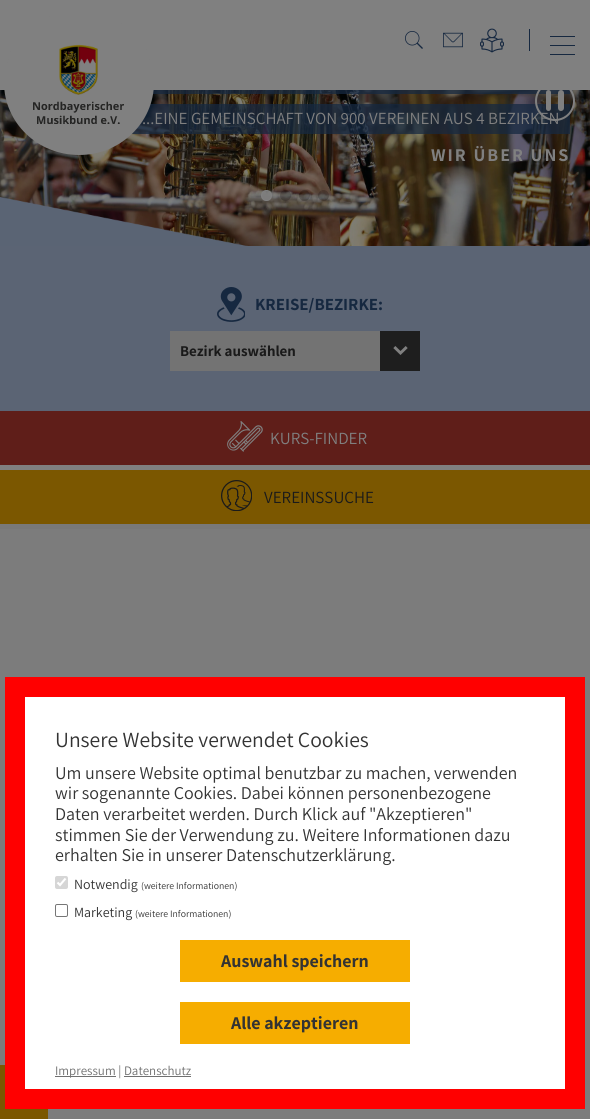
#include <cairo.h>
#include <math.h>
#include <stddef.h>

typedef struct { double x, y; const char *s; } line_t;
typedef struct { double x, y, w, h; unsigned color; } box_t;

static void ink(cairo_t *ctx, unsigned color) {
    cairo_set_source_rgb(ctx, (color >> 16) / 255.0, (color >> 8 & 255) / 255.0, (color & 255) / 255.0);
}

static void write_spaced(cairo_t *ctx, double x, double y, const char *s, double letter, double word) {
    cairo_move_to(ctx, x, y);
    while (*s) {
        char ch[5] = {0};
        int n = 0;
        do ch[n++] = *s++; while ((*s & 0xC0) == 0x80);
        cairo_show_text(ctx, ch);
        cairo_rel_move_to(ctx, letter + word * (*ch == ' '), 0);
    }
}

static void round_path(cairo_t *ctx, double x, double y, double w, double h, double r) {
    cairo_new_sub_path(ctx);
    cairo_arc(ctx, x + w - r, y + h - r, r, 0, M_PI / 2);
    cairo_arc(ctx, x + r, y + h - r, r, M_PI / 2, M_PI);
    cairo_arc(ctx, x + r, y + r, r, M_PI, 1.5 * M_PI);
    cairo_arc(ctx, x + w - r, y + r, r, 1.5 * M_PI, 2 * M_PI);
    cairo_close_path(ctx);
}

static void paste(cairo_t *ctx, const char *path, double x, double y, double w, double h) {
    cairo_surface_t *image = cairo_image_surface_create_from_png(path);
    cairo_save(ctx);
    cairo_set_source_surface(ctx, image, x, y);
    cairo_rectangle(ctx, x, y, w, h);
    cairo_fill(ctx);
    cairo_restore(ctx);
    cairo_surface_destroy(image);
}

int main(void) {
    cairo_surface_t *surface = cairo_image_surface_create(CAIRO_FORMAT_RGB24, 590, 1119);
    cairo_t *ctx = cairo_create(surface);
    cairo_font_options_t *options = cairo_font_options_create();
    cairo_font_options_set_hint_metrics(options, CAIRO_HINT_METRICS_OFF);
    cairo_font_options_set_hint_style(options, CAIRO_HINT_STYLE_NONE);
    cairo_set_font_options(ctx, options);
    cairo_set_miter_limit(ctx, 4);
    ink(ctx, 0x797979);
    cairo_paint(ctx);
    paste(ctx, "media/5.png", 0, 90, 590, 156);
    cairo_set_source_rgba(ctx, 0.086, 0.157, 0.251, 0.75);
    cairo_rectangle(ctx, 153, 90, 417, 4);
    cairo_fill(ctx);
    cairo_rectangle(ctx, 132, 104, 438, 30);
    cairo_fill(ctx);
    cairo_arc(ctx, 555, 101, 19, 0, 2 * M_PI);
    ink(ctx, 0x808080);
    cairo_stroke(ctx);
    cairo_rectangle(ctx, 0, 0, 590, 90);
    cairo_fill(ctx);
    cairo_new_path(ctx);
    cairo_move_to(ctx, 79, 10);
    cairo_curve_to(ctx, 120.5, 10, 154, 42.5, 154, 82.5);
    cairo_curve_to(ctx, 154, 122.5, 120.5, 155, 79, 155);
    cairo_curve_to(ctx, 37.5, 155, 4, 122.5, 4, 82.5);
    cairo_curve_to(ctx, 4, 42.5, 37.5, 10, 79, 10);
    cairo_close_path(ctx);
    cairo_fill(ctx);
    paste(ctx, "media/1.png", 33, 44, 91, 80);
    paste(ctx, "media/2.png", 405, 31, 18, 18);
    paste(ctx, "media/3.png", 443, 32, 20, 16);
    paste(ctx, "media/4.png", 480, 28, 24, 25);
    {
        static const box_t items[] = {
            {529, 29, 1, 22, 0x162840},
            {550, 45, 25, 1, 0x162840},
            {550, 36, 25, 1, 0x162840},
            {550, 54, 25, 1, 0x162840},
        };
        for (size_t i = 0; i < sizeof items / sizeof *items; i++) {
            ink(ctx, items[i].color);
            cairo_rectangle(ctx, items[i].x, items[i].y, items[i].w, items[i].h);
            cairo_fill(ctx);
        }
    }
    ink(ctx, 0x808080);
    round_path(ctx, 546, 90, 5, 21, 2.5);
    cairo_fill(ctx);
    round_path(ctx, 558, 90, 6, 21, 3);
    cairo_fill(ctx);
    cairo_select_font_face(ctx, "Assistant", CAIRO_FONT_SLANT_NORMAL, CAIRO_FONT_WEIGHT_NORMAL);
    cairo_set_font_size(ctx, 17);
    cairo_move_to(ctx, 142, 124);
    cairo_show_text(ctx, "...EINE GEMEINSCHAFT VON 900 VEREINEN AUS 4 BEZIRKEN");
    cairo_select_font_face(ctx, "Assistant", CAIRO_FONT_SLANT_NORMAL, CAIRO_FONT_WEIGHT_BOLD);
    cairo_set_font_size(ctx, 18);
    write_spaced(ctx, 431, 161, "WIR ÜBER UNS", 2, 0);
    cairo_set_source_rgba(ctx, 0.502, 0.502, 0.502, 0.9);
    cairo_new_path(ctx);
    cairo_arc(ctx, 266.5, 195.5, 5, 0, 2 * M_PI);
    cairo_fill_preserve(ctx);
    ink(ctx, 0x808080);
    cairo_set_line_width(ctx, 1);
    cairo_stroke(ctx);
    cairo_set_source_rgba(ctx, 0, 0, 0, 0.2);
    cairo_arc(ctx, 285.5, 195.5, 5.5, 0, 2 * M_PI);
    cairo_fill(ctx);
    cairo_arc(ctx, 304.5, 195.5, 5.5, 0, 2 * M_PI);
    cairo_fill(ctx);
    cairo_arc(ctx, 323.5, 195.5, 5.5, 0, 2 * M_PI);
    cairo_fill(ctx);
    paste(ctx, "media/6.png", 0, 197, 248, 49);
    ink(ctx, 0x808080);
    cairo_rectangle(ctx, 0, 465, 590, 5);
    cairo_fill(ctx);
    ink(ctx, 0x5B6474);
    cairo_rectangle(ctx, 0, 246, 590, 165);
    cairo_fill(ctx);
    paste(ctx, "media/7.png", 217, 287, 28, 35);
    cairo_set_font_size(ctx, 17);
    ink(ctx, 0x162840);
    cairo_move_to(ctx, 255, 310);
    cairo_show_text(ctx, "KREISE/BEZIRKE:");
    ink(ctx, 0x737373);
    cairo_rectangle(ctx, 170, 331, 210, 40);
    cairo_fill(ctx);
    cairo_set_font_size(ctx, 15);
    ink(ctx, 0x1A1A1A);
    cairo_move_to(ctx, 180, 356);
    cairo_show_text(ctx, "Bezirk auswählen");
    ink(ctx, 0x1E1E1E);
    cairo_rectangle(ctx, 380, 331, 40, 40);
    cairo_fill(ctx);
    paste(ctx, "media/8.png", 393, 346, 15, 9);
    ink(ctx, 0x5F1E19);
    cairo_rectangle(ctx, 0, 411, 590, 54);
    cairo_fill(ctx);
    paste(ctx, "media/9.png", 227, 421, 36, 31);
    cairo_select_font_face(ctx, "Assistant", CAIRO_FONT_SLANT_NORMAL, CAIRO_FONT_WEIGHT_NORMAL);
    cairo_set_font_size(ctx, 17);
    ink(ctx, 0x808080);
    cairo_move_to(ctx, 270, 444);
    cairo_show_text(ctx, "KURS-FINDER");
    ink(ctx, 0x7B5700);
    cairo_rectangle(ctx, 0, 470, 590, 54);
    cairo_fill(ctx);
    paste(ctx, "media/10.png", 221, 480, 31, 31);
    ink(ctx, 0x1A1A1A);
    cairo_move_to(ctx, 264, 503);
    cairo_show_text(ctx, "VEREINSSUCHE");
    ink(ctx, 0x7C7C7C);
    cairo_rectangle(ctx, 0, 529, 590, 590);
    cairo_fill(ctx);
    ink(ctx, 0x7B5700);
    cairo_rectangle(ctx, 0, 1065, 48, 54);
    cairo_fill(ctx);
    ink(ctx, 0xFFFFFF);
    cairo_rectangle(ctx, 15, 687, 560, 412);
    cairo_fill_preserve(ctx);
    ink(ctx, 0xFF0000);
    cairo_set_line_width(ctx, 20);
    cairo_stroke(ctx);
    cairo_set_font_size(ctx, 21.6);
    ink(ctx, 0x333333);
    cairo_move_to(ctx, 55, 747);
    cairo_show_text(ctx, "Unsere Website verwendet Cookies");
    cairo_set_font_size(ctx, 18);
    {
        static const line_t items[] = {
            {55, 779, "Um unsere Website optimal benutzbar zu machen, verwenden"},
            {55, 799, "wir sogenannte Cookies. Dabei können personenbezogene"},
            {55, 820, "Daten verarbeitet werden. Durch Klick auf \"Akzeptieren\""},
            {55, 841, "stimmen Sie der Verwendung zu. Weitere Informationen dazu"},
            {55, 861, "erhalten Sie in unserer Datenschutzerklärung."},
        };
        for (size_t i = 0; i < sizeof items / sizeof *items; i++) {
            cairo_move_to(ctx, items[i].x, items[i].y);
            cairo_show_text(ctx, items[i].s);
        }
    }
    ink(ctx, 0xD6D6D6);
    round_path(ctx, 55, 876, 13, 13, 2);
    cairo_fill(ctx);
    cairo_new_path(ctx);
    cairo_move_to(ctx, 57.5, 882.5);
    cairo_line_to(ctx, 60, 885);
    cairo_line_to(ctx, 65.5, 878.5);
    ink(ctx, 0xFFFFFF);
    cairo_set_line_width(ctx, 2.1);
    cairo_stroke(ctx);
    cairo_set_font_size(ctx, 14);
    ink(ctx, 0x333333);
    cairo_move_to(ctx, 74, 889);
    cairo_show_text(ctx, "Notwendig");
    cairo_set_font_size(ctx, 9.75);
    cairo_move_to(ctx, 141, 889);
    cairo_show_text(ctx, "(weitere Informationen)");
    round_path(ctx, 55.5, 904.5, 12, 12, 1.5);
    ink(ctx, 0x767676);
    cairo_set_line_width(ctx, 1);
    cairo_stroke(ctx);
    cairo_set_font_size(ctx, 14);
    ink(ctx, 0x333333);
    cairo_move_to(ctx, 74, 917);
    cairo_show_text(ctx, "Marketing");
    cairo_set_font_size(ctx, 9.75);
    cairo_move_to(ctx, 135, 917);
    cairo_show_text(ctx, "(weitere Informationen)");
    ink(ctx, 0xF6AD00);
    cairo_rectangle(ctx, 180, 940, 230, 42);
    cairo_fill(ctx);
    cairo_select_font_face(ctx, "Assistant", CAIRO_FONT_SLANT_NORMAL, CAIRO_FONT_WEIGHT_BOLD);
    cairo_set_font_size(ctx, 18);
    ink(ctx, 0x333333);
    cairo_move_to(ctx, 221, 967);
    cairo_show_text(ctx, "Auswahl speichern");
    ink(ctx, 0xF6AD00);
    cairo_rectangle(ctx, 180, 1002, 230, 42);
    cairo_fill(ctx);
    ink(ctx, 0x333333);
    cairo_move_to(ctx, 231, 1029);
    cairo_show_text(ctx, "Alle akzeptieren");
    ink(ctx, 0x707070);
    cairo_rectangle(ctx, 55, 1076, 61, 1);
    cairo_fill(ctx);
    cairo_select_font_face(ctx, "Assistant", CAIRO_FONT_SLANT_NORMAL, CAIRO_FONT_WEIGHT_NORMAL);
    cairo_set_font_size(ctx, 13);
    cairo_move_to(ctx, 55, 1075);
    cairo_show_text(ctx, "Impressum | Datenschutz");
    cairo_rectangle(ctx, 124, 1076, 67, 1);
    cairo_fill(ctx);
    cairo_surface_write_to_png(surface, "image.png");
    cairo_font_options_destroy(options);
    cairo_destroy(ctx);
    cairo_surface_destroy(surface);
    return 0;
}
